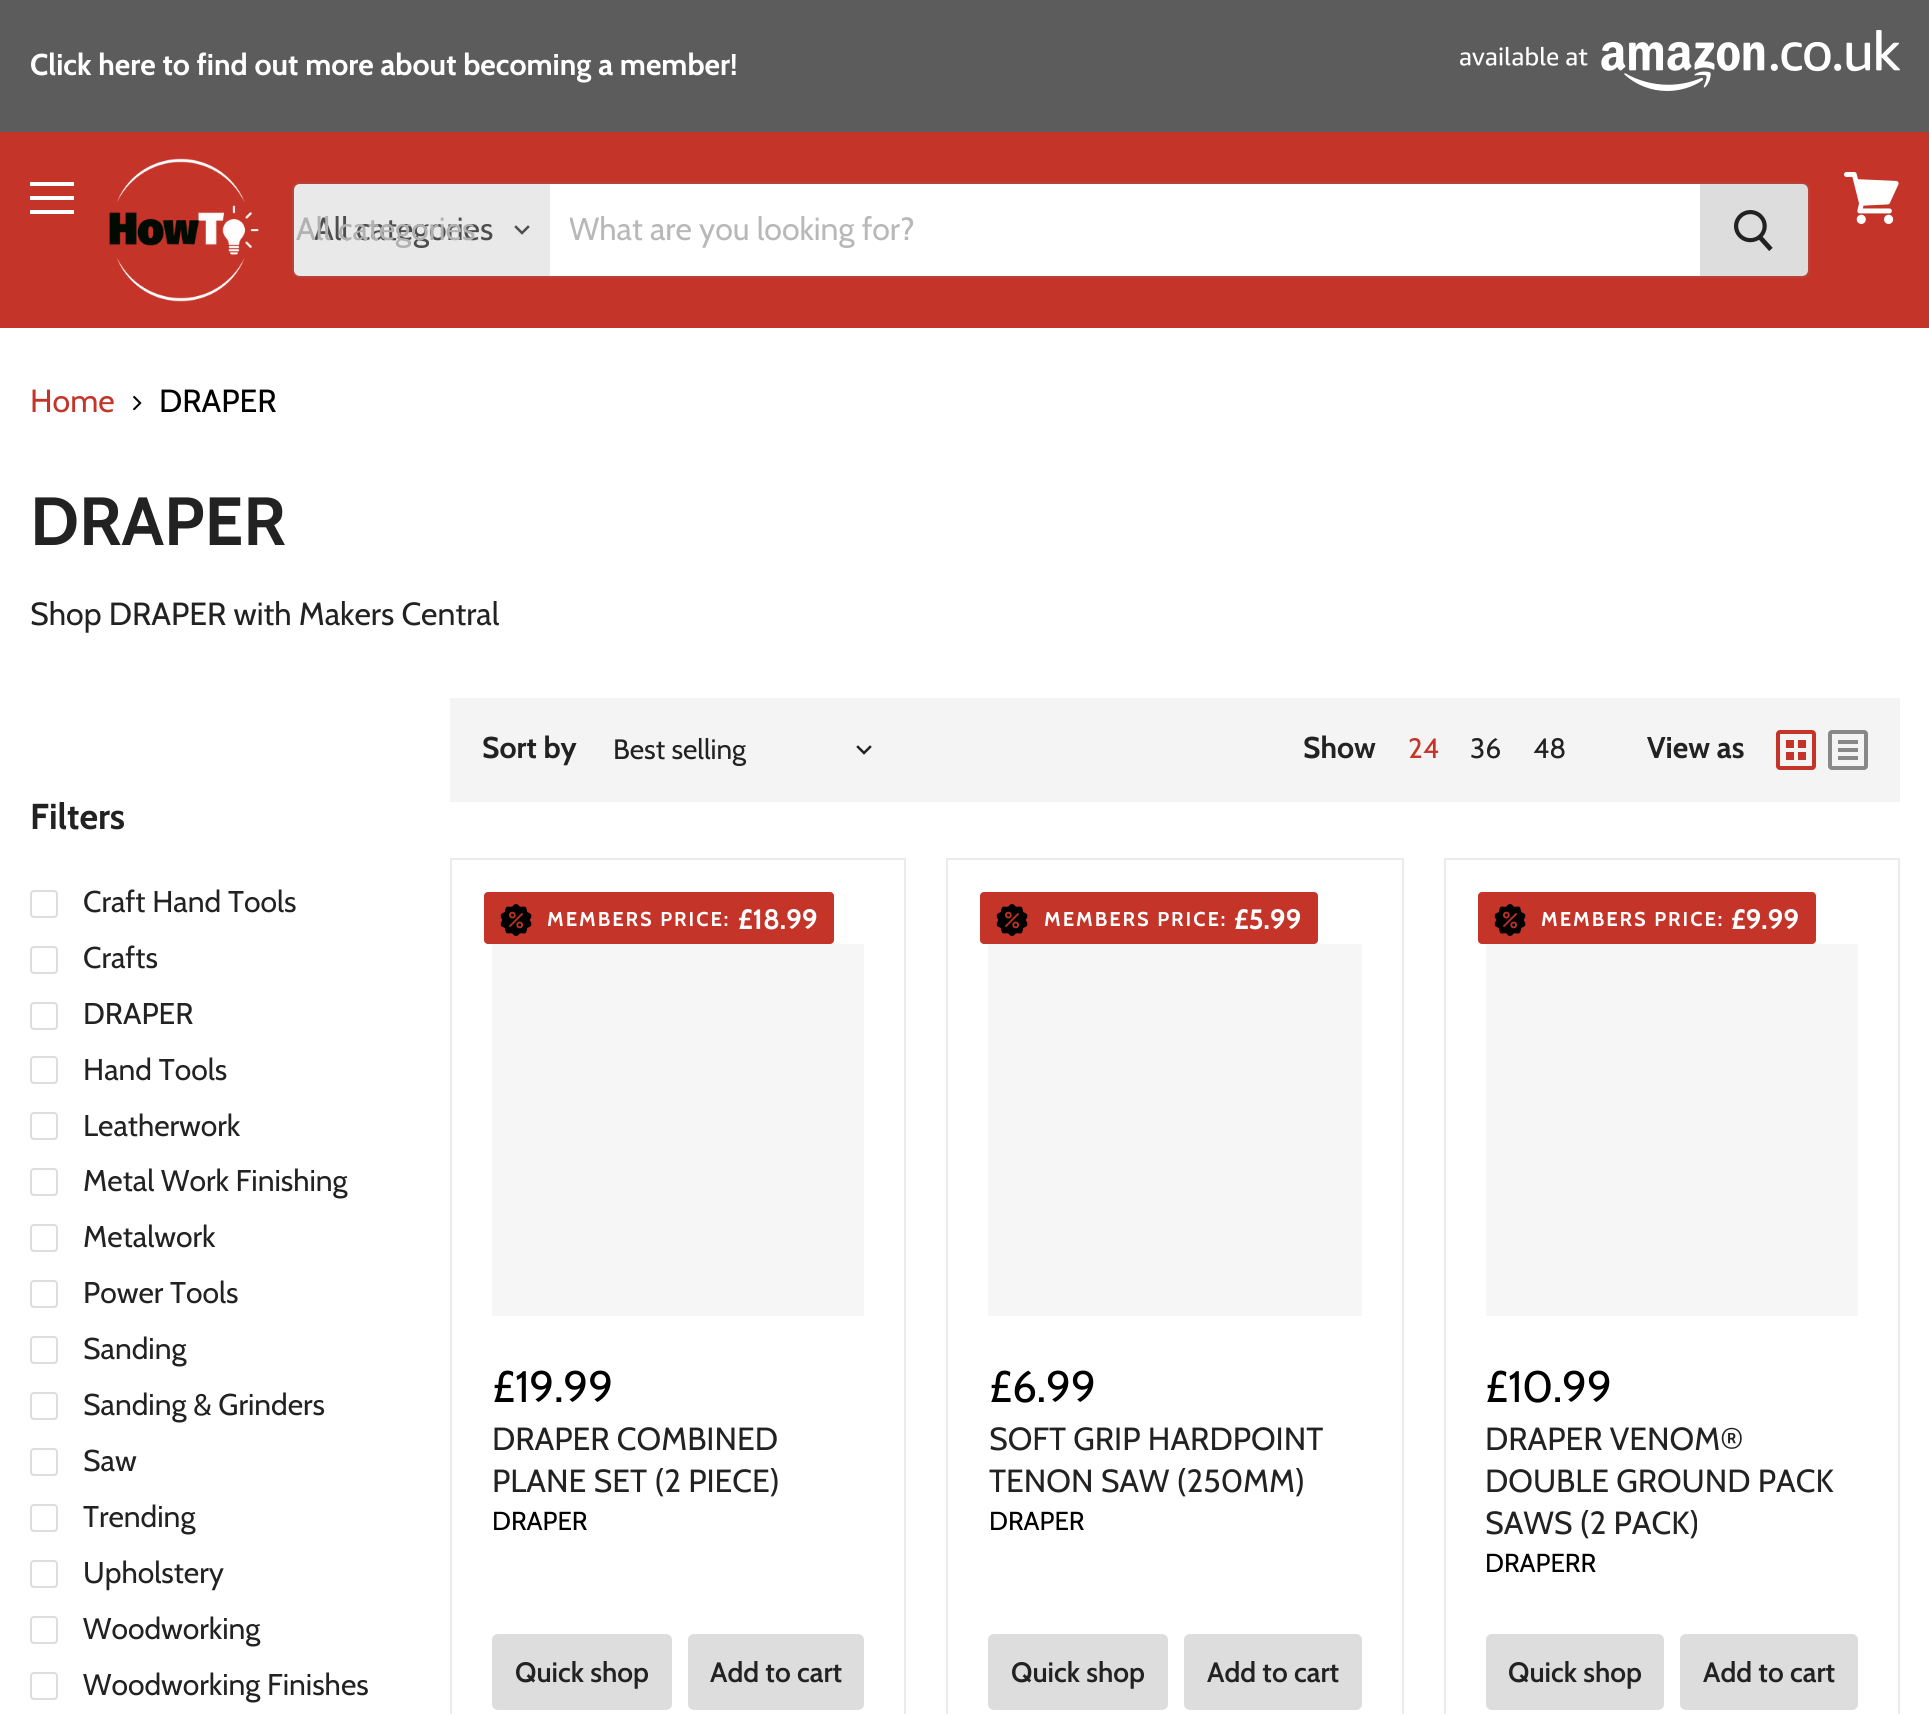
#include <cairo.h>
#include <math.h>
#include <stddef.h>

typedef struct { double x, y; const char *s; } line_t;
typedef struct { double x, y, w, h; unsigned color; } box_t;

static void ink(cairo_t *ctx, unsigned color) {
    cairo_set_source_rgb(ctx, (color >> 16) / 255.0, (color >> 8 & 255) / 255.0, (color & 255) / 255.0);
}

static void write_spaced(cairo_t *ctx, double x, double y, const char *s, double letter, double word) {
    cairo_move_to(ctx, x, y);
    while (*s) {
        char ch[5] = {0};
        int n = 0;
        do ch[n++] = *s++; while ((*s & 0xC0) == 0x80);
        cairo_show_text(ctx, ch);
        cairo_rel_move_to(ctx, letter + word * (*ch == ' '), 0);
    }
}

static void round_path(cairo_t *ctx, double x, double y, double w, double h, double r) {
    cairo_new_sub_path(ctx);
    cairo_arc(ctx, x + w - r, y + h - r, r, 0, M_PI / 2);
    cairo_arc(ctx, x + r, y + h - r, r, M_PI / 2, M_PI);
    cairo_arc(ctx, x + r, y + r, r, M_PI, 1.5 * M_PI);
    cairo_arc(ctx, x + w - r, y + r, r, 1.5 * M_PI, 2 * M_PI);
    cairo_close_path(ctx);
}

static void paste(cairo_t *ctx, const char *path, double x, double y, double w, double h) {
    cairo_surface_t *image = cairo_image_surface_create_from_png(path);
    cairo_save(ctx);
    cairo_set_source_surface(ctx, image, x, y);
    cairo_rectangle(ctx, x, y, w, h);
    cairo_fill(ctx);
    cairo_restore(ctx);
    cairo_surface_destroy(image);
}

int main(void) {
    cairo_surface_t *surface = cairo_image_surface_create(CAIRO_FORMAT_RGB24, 1929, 1714);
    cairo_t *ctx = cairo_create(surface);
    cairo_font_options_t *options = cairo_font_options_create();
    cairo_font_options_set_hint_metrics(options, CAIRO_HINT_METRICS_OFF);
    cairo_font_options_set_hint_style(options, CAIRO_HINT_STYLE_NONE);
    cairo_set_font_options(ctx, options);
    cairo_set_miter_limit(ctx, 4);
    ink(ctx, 0xFFFFFF);
    cairo_paint(ctx);
    ink(ctx, 0x5C5C5C);
    cairo_rectangle(ctx, 0, 0, 1929, 132);
    cairo_fill(ctx);
    cairo_select_font_face(ctx, "Cabin", CAIRO_FONT_SLANT_NORMAL, CAIRO_FONT_WEIGHT_BOLD);
    cairo_set_font_size(ctx, 30);
    ink(ctx, 0xFFFFFF);
    cairo_move_to(ctx, 30, 75);
    cairo_show_text(ctx, "Click here to find out more about becoming a member!");
    paste(ctx, "media/1.png", 1460, 30, 440, 61);
    {
        static const box_t items[] = {
            {0, 132, 1929, 196, 0xC53429},
            {30, 182, 44, 4, 0xFFFFFF},
            {30, 196, 44, 4, 0xFFFFFF},
            {30, 210, 44, 4, 0xFFFFFF},
        };
        for (size_t i = 0; i < sizeof items / sizeof *items; i++) {
            ink(ctx, items[i].color);
            cairo_rectangle(ctx, items[i].x, items[i].y, items[i].w, items[i].h);
            cairo_fill(ctx);
        }
    }
    paste(ctx, "media/2.png", 1844, 172, 55, 52);
    paste(ctx, "media/3.png", 109, 158, 150, 144);
    round_path(ctx, 293, 183, 1516, 94, 7);
    cairo_set_source_rgba(ctx, 0.502, 0.502, 0.502, 0.2);
    cairo_stroke(ctx);
    ink(ctx, 0xE9E9E9);
    cairo_new_path(ctx);
    cairo_move_to(ctx, 300, 184);
    cairo_line_to(ctx, 550, 184);
    cairo_line_to(ctx, 550, 276);
    cairo_line_to(ctx, 300, 276);
    cairo_curve_to(ctx, 296.5, 276, 294, 273.5, 294, 270);
    cairo_line_to(ctx, 294, 190);
    cairo_curve_to(ctx, 294, 186.5, 296.5, 184, 300, 184);
    cairo_close_path(ctx);
    cairo_fill(ctx);
    cairo_select_font_face(ctx, "Cabin", CAIRO_FONT_SLANT_NORMAL, CAIRO_FONT_WEIGHT_NORMAL);
    cairo_set_font_size(ctx, 32);
    ink(ctx, 0x4D4D4D);
    cairo_move_to(ctx, 314, 240);
    cairo_show_text(ctx, "All categories");
    ink(ctx, 0xB1B1B1);
    cairo_move_to(ctx, 296, 240);
    cairo_show_text(ctx, "All categories");
    cairo_new_path(ctx);
    cairo_move_to(ctx, 522, 233);
    cairo_line_to(ctx, 528, 227);
    cairo_move_to(ctx, 522, 233);
    cairo_line_to(ctx, 516, 227);
    ink(ctx, 0x4D4D4D);
    cairo_set_line_width(ctx, 2.5);
    cairo_set_line_cap(ctx, CAIRO_LINE_CAP_SQUARE);
    cairo_stroke(ctx);
    ink(ctx, 0xFFFFFF);
    cairo_rectangle(ctx, 550, 184, 1150, 92);
    cairo_fill(ctx);
    cairo_save(ctx);
    cairo_rectangle(ctx, 570, 210, 1110, 38);
    cairo_clip(ctx);
    ink(ctx, 0xB8B8B8);
    cairo_move_to(ctx, 569, 240);
    cairo_show_text(ctx, "What are you looking for?");
    cairo_restore(ctx);
    ink(ctx, 0xDDDDDD);
    cairo_new_path(ctx);
    cairo_move_to(ctx, 1701, 185);
    cairo_line_to(ctx, 1802, 185);
    cairo_curve_to(ctx, 1805, 185, 1807, 187, 1807, 190);
    cairo_line_to(ctx, 1807, 270);
    cairo_curve_to(ctx, 1807, 273, 1805, 275, 1802, 275);
    cairo_line_to(ctx, 1701, 275);
    cairo_close_path(ctx);
    cairo_fill_preserve(ctx);
    cairo_set_line_width(ctx, 2);
    cairo_set_line_cap(ctx, CAIRO_LINE_CAP_BUTT);
    cairo_stroke(ctx);
    paste(ctx, "media/4.png", 1734, 210, 39, 41);
    ink(ctx, 0xC53429);
    cairo_move_to(ctx, 30, 412);
    cairo_show_text(ctx, "Home");
    paste(ctx, "media/5.png", 132, 395, 10, 16);
    ink(ctx, 0x000000);
    cairo_move_to(ctx, 159, 412);
    cairo_show_text(ctx, "DRAPER");
    cairo_select_font_face(ctx, "Cabin", CAIRO_FONT_SLANT_NORMAL, CAIRO_FONT_WEIGHT_BOLD);
    cairo_set_font_size(ctx, 68);
    ink(ctx, 0x222222);
    cairo_move_to(ctx, 30, 545);
    cairo_show_text(ctx, "DRAPER");
    cairo_select_font_face(ctx, "Cabin", CAIRO_FONT_SLANT_NORMAL, CAIRO_FONT_WEIGHT_NORMAL);
    cairo_set_font_size(ctx, 32);
    cairo_move_to(ctx, 30, 625);
    cairo_show_text(ctx, "Shop DRAPER with Makers Central");
    cairo_select_font_face(ctx, "Cabin", CAIRO_FONT_SLANT_NORMAL, CAIRO_FONT_WEIGHT_BOLD);
    cairo_set_font_size(ctx, 36);
    cairo_move_to(ctx, 30, 829);
    cairo_show_text(ctx, "Filters");
    round_path(ctx, 31, 891, 26, 26, 3);
    ink(ctx, 0xDDDDDD);
    cairo_stroke(ctx);
    cairo_select_font_face(ctx, "Cabin", CAIRO_FONT_SLANT_NORMAL, CAIRO_FONT_WEIGHT_NORMAL);
    cairo_set_font_size(ctx, 30);
    ink(ctx, 0x222222);
    cairo_move_to(ctx, 83, 912);
    cairo_show_text(ctx, "Craft Hand Tools");
    round_path(ctx, 31, 947, 26, 26, 3);
    ink(ctx, 0xDDDDDD);
    cairo_stroke(ctx);
    ink(ctx, 0x222222);
    cairo_move_to(ctx, 83, 968);
    cairo_show_text(ctx, "Crafts");
    round_path(ctx, 31, 1003, 26, 26, 3);
    ink(ctx, 0xDDDDDD);
    cairo_stroke(ctx);
    ink(ctx, 0x222222);
    cairo_move_to(ctx, 83, 1024);
    cairo_show_text(ctx, "DRAPER");
    round_path(ctx, 31, 1057, 26, 26, 3);
    ink(ctx, 0xDDDDDD);
    cairo_stroke(ctx);
    ink(ctx, 0x222222);
    cairo_move_to(ctx, 83, 1080);
    cairo_show_text(ctx, "Hand Tools");
    round_path(ctx, 31, 1113, 26, 26, 3);
    ink(ctx, 0xDDDDDD);
    cairo_stroke(ctx);
    ink(ctx, 0x222222);
    cairo_move_to(ctx, 83, 1136);
    cairo_show_text(ctx, "Leatherwork");
    round_path(ctx, 31, 1169, 26, 26, 3);
    ink(ctx, 0xDDDDDD);
    cairo_stroke(ctx);
    ink(ctx, 0x222222);
    cairo_move_to(ctx, 83, 1191);
    cairo_show_text(ctx, "Metal Work Finishing");
    round_path(ctx, 31, 1225, 26, 26, 3);
    ink(ctx, 0xDDDDDD);
    cairo_stroke(ctx);
    ink(ctx, 0x222222);
    cairo_move_to(ctx, 83, 1247);
    cairo_show_text(ctx, "Metalwork");
    round_path(ctx, 31, 1281, 26, 26, 3);
    ink(ctx, 0xDDDDDD);
    cairo_stroke(ctx);
    ink(ctx, 0x222222);
    cairo_move_to(ctx, 83, 1303);
    cairo_show_text(ctx, "Power Tools");
    round_path(ctx, 31, 1337, 26, 26, 3);
    ink(ctx, 0xDDDDDD);
    cairo_stroke(ctx);
    ink(ctx, 0x222222);
    cairo_move_to(ctx, 83, 1359);
    cairo_show_text(ctx, "Sanding");
    round_path(ctx, 31, 1393, 26, 26, 3);
    ink(ctx, 0xDDDDDD);
    cairo_stroke(ctx);
    ink(ctx, 0x222222);
    cairo_move_to(ctx, 83, 1415);
    cairo_show_text(ctx, "Sanding & Grinders");
    round_path(ctx, 31, 1449, 26, 26, 3);
    ink(ctx, 0xDDDDDD);
    cairo_stroke(ctx);
    ink(ctx, 0x222222);
    cairo_move_to(ctx, 83, 1471);
    cairo_show_text(ctx, "Saw");
    round_path(ctx, 31, 1505, 26, 26, 3);
    ink(ctx, 0xDDDDDD);
    cairo_stroke(ctx);
    ink(ctx, 0x222222);
    cairo_move_to(ctx, 83, 1527);
    cairo_show_text(ctx, "Trending");
    round_path(ctx, 31, 1561, 26, 26, 3);
    ink(ctx, 0xDDDDDD);
    cairo_stroke(ctx);
    ink(ctx, 0x222222);
    cairo_move_to(ctx, 83, 1583);
    cairo_show_text(ctx, "Upholstery");
    round_path(ctx, 31, 1617, 26, 26, 3);
    ink(ctx, 0xDDDDDD);
    cairo_stroke(ctx);
    ink(ctx, 0x222222);
    cairo_move_to(ctx, 83, 1639);
    cairo_show_text(ctx, "Woodworking");
    round_path(ctx, 31, 1673, 26, 26, 3);
    ink(ctx, 0xDDDDDD);
    cairo_stroke(ctx);
    ink(ctx, 0x222222);
    cairo_move_to(ctx, 83, 1695);
    cairo_show_text(ctx, "Woodworking Finishes");
    ink(ctx, 0xF4F4F4);
    cairo_rectangle(ctx, 450, 698, 1450, 104);
    cairo_fill(ctx);
    cairo_select_font_face(ctx, "Cabin", CAIRO_FONT_SLANT_NORMAL, CAIRO_FONT_WEIGHT_BOLD);
    ink(ctx, 0x222222);
    cairo_move_to(ctx, 482, 758);
    cairo_show_text(ctx, "Sort by");
    cairo_select_font_face(ctx, "Cabin", CAIRO_FONT_SLANT_NORMAL, CAIRO_FONT_WEIGHT_NORMAL);
    cairo_set_font_size(ctx, 28);
    cairo_move_to(ctx, 613, 759);
    cairo_show_text(ctx, "Best selling");
    cairo_new_path(ctx);
    cairo_move_to(ctx, 864, 753);
    cairo_line_to(ctx, 870, 747);
    cairo_move_to(ctx, 864, 753);
    cairo_line_to(ctx, 858, 747);
    cairo_set_line_width(ctx, 2.5);
    cairo_set_line_cap(ctx, CAIRO_LINE_CAP_SQUARE);
    cairo_stroke(ctx);
    cairo_select_font_face(ctx, "Cabin", CAIRO_FONT_SLANT_NORMAL, CAIRO_FONT_WEIGHT_BOLD);
    cairo_set_font_size(ctx, 30);
    cairo_move_to(ctx, 1303, 758);
    cairo_show_text(ctx, "Show");
    cairo_select_font_face(ctx, "Cabin", CAIRO_FONT_SLANT_NORMAL, CAIRO_FONT_WEIGHT_NORMAL);
    cairo_set_font_size(ctx, 28);
    ink(ctx, 0xC53429);
    cairo_move_to(ctx, 1408, 758);
    cairo_show_text(ctx, "24");
    ink(ctx, 0x222222);
    cairo_move_to(ctx, 1470, 758);
    cairo_show_text(ctx, "36");
    cairo_move_to(ctx, 1533, 758);
    cairo_show_text(ctx, "48");
    cairo_select_font_face(ctx, "Cabin", CAIRO_FONT_SLANT_NORMAL, CAIRO_FONT_WEIGHT_BOLD);
    cairo_set_font_size(ctx, 30);
    cairo_move_to(ctx, 1647, 758);
    cairo_show_text(ctx, "View as");
    paste(ctx, "media/6.png", 1776, 730, 40, 40);
    paste(ctx, "media/7.png", 1828, 730, 40, 40);
    cairo_rectangle(ctx, 451, 859, 454, 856);
    ink(ctx, 0xEBEBEB);
    cairo_set_line_width(ctx, 2);
    cairo_set_line_cap(ctx, CAIRO_LINE_CAP_BUTT);
    cairo_stroke(ctx);
    ink(ctx, 0xC53429);
    round_path(ctx, 484, 892, 350, 52, 4);
    cairo_fill(ctx);
    paste(ctx, "media/8.png", 500, 904, 32, 32);
    cairo_set_font_size(ctx, 20);
    ink(ctx, 0xFFFFFF);
    write_spaced(ctx, 547, 926, "MEMBERS PRICE:", 2, 0);
    cairo_set_font_size(ctx, 28);
    cairo_move_to(ctx, 738, 929);
    cairo_show_text(ctx, "£18.99");
    ink(ctx, 0xF6F6F6);
    cairo_rectangle(ctx, 492, 944, 372, 372);
    cairo_fill(ctx);
    cairo_select_font_face(ctx, "Cabin", CAIRO_FONT_SLANT_NORMAL, CAIRO_FONT_WEIGHT_NORMAL);
    cairo_set_font_size(ctx, 44);
    ink(ctx, 0x000000);
    cairo_move_to(ctx, 492, 1402);
    cairo_show_text(ctx, "£19.99");
    cairo_set_font_size(ctx, 32);
    ink(ctx, 0x222222);
    cairo_move_to(ctx, 492, 1450);
    cairo_show_text(ctx, "DRAPER COMBINED");
    cairo_move_to(ctx, 492, 1492);
    cairo_show_text(ctx, "PLANE SET (2 PIECE)");
    cairo_set_font_size(ctx, 26);
    ink(ctx, 0x000000);
    cairo_move_to(ctx, 492, 1530);
    cairo_show_text(ctx, "DRAPER");
    ink(ctx, 0xDDDDDD);
    round_path(ctx, 493, 1635, 178, 74, 5);
    cairo_fill_preserve(ctx);
    cairo_stroke(ctx);
    cairo_select_font_face(ctx, "Cabin SemiBold", CAIRO_FONT_SLANT_NORMAL, CAIRO_FONT_WEIGHT_NORMAL);
    cairo_set_font_size(ctx, 28);
    ink(ctx, 0x222222);
    cairo_move_to(ctx, 515, 1682);
    cairo_show_text(ctx, "Quick shop");
    ink(ctx, 0xDDDDDD);
    round_path(ctx, 689, 1635, 174, 74, 5);
    cairo_fill_preserve(ctx);
    cairo_stroke(ctx);
    ink(ctx, 0x222222);
    cairo_move_to(ctx, 710, 1682);
    cairo_show_text(ctx, "Add to cart");
    cairo_rectangle(ctx, 947, 859, 456, 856);
    ink(ctx, 0xEBEBEB);
    cairo_stroke(ctx);
    ink(ctx, 0xC53429);
    round_path(ctx, 980, 892, 338, 52, 4);
    cairo_fill(ctx);
    paste(ctx, "media/8.png", 996, 904, 32, 32);
    cairo_select_font_face(ctx, "Cabin", CAIRO_FONT_SLANT_NORMAL, CAIRO_FONT_WEIGHT_BOLD);
    cairo_set_font_size(ctx, 20);
    ink(ctx, 0xFFFFFF);
    write_spaced(ctx, 1044, 926, "MEMBERS PRICE:", 2, 0);
    cairo_set_font_size(ctx, 28);
    cairo_move_to(ctx, 1234, 929);
    cairo_show_text(ctx, "£5.99");
    ink(ctx, 0xF6F6F6);
    cairo_rectangle(ctx, 988, 944, 374, 372);
    cairo_fill(ctx);
    cairo_select_font_face(ctx, "Cabin", CAIRO_FONT_SLANT_NORMAL, CAIRO_FONT_WEIGHT_NORMAL);
    cairo_set_font_size(ctx, 44);
    ink(ctx, 0x000000);
    cairo_move_to(ctx, 989, 1402);
    cairo_show_text(ctx, "£6.99");
    cairo_set_font_size(ctx, 32);
    ink(ctx, 0x222222);
    cairo_move_to(ctx, 989, 1450);
    cairo_show_text(ctx, "SOFT GRIP HARDPOINT");
    cairo_move_to(ctx, 989, 1492);
    cairo_show_text(ctx, "TENON SAW (250MM)");
    cairo_set_font_size(ctx, 26);
    ink(ctx, 0x000000);
    cairo_move_to(ctx, 989, 1530);
    cairo_show_text(ctx, "DRAPER");
    ink(ctx, 0xDDDDDD);
    round_path(ctx, 989, 1635, 178, 74, 5);
    cairo_fill_preserve(ctx);
    cairo_stroke(ctx);
    cairo_select_font_face(ctx, "Cabin SemiBold", CAIRO_FONT_SLANT_NORMAL, CAIRO_FONT_WEIGHT_NORMAL);
    cairo_set_font_size(ctx, 28);
    ink(ctx, 0x222222);
    cairo_move_to(ctx, 1011, 1682);
    cairo_show_text(ctx, "Quick shop");
    ink(ctx, 0xDDDDDD);
    round_path(ctx, 1185, 1635, 176, 74, 5);
    cairo_fill_preserve(ctx);
    cairo_stroke(ctx);
    ink(ctx, 0x222222);
    cairo_move_to(ctx, 1207, 1682);
    cairo_show_text(ctx, "Add to cart");
    cairo_rectangle(ctx, 1445, 859, 454, 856);
    ink(ctx, 0xEBEBEB);
    cairo_stroke(ctx);
    ink(ctx, 0xC53429);
    round_path(ctx, 1478, 892, 338, 52, 4);
    cairo_fill(ctx);
    paste(ctx, "media/8.png", 1494, 904, 32, 32);
    cairo_select_font_face(ctx, "Cabin", CAIRO_FONT_SLANT_NORMAL, CAIRO_FONT_WEIGHT_BOLD);
    cairo_set_font_size(ctx, 20);
    ink(ctx, 0xFFFFFF);
    write_spaced(ctx, 1541, 926, "MEMBERS PRICE:", 2, 0);
    cairo_set_font_size(ctx, 28);
    cairo_move_to(ctx, 1731, 929);
    cairo_show_text(ctx, "£9.99");
    ink(ctx, 0xF6F6F6);
    cairo_rectangle(ctx, 1486, 944, 372, 372);
    cairo_fill(ctx);
    cairo_select_font_face(ctx, "Cabin", CAIRO_FONT_SLANT_NORMAL, CAIRO_FONT_WEIGHT_NORMAL);
    cairo_set_font_size(ctx, 44);
    ink(ctx, 0x000000);
    cairo_move_to(ctx, 1485, 1402);
    cairo_show_text(ctx, "£10.99");
    cairo_set_font_size(ctx, 32);
    ink(ctx, 0x222222);
    {
        static const line_t items[] = {
            {1485, 1450, "DRAPER VENOM®"},
            {1485, 1492, "DOUBLE GROUND PACK"},
            {1485, 1534, "SAWS (2 PACK)"},
        };
        for (size_t i = 0; i < sizeof items / sizeof *items; i++) {
            cairo_move_to(ctx, items[i].x, items[i].y);
            cairo_show_text(ctx, items[i].s);
        }
    }
    cairo_set_font_size(ctx, 26);
    ink(ctx, 0x000000);
    cairo_move_to(ctx, 1485, 1572);
    cairo_show_text(ctx, "DRAPERR");
    ink(ctx, 0xDDDDDD);
    round_path(ctx, 1487, 1635, 176, 74, 5);
    cairo_fill_preserve(ctx);
    cairo_stroke(ctx);
    cairo_select_font_face(ctx, "Cabin SemiBold", CAIRO_FONT_SLANT_NORMAL, CAIRO_FONT_WEIGHT_NORMAL);
    cairo_set_font_size(ctx, 28);
    ink(ctx, 0x222222);
    cairo_move_to(ctx, 1508, 1682);
    cairo_show_text(ctx, "Quick shop");
    ink(ctx, 0xDDDDDD);
    round_path(ctx, 1681, 1635, 176, 74, 5);
    cairo_fill_preserve(ctx);
    cairo_stroke(ctx);
    ink(ctx, 0x222222);
    cairo_move_to(ctx, 1703, 1682);
    cairo_show_text(ctx, "Add to cart");
    cairo_surface_write_to_png(surface, "image.png");
    cairo_font_options_destroy(options);
    cairo_destroy(ctx);
    cairo_surface_destroy(surface);
    return 0;
}
